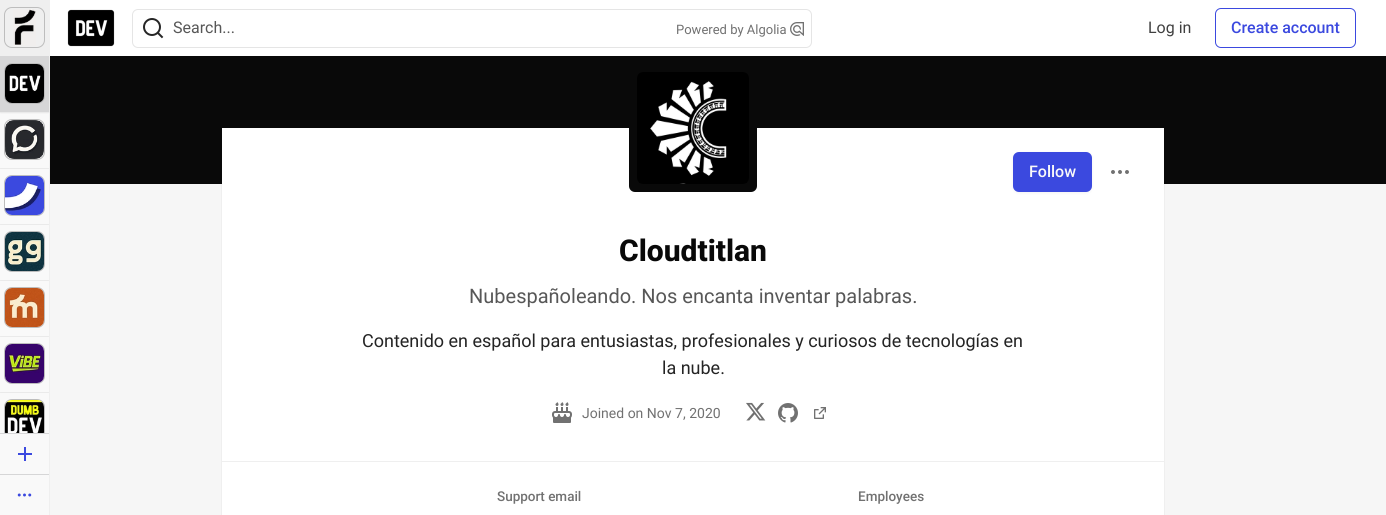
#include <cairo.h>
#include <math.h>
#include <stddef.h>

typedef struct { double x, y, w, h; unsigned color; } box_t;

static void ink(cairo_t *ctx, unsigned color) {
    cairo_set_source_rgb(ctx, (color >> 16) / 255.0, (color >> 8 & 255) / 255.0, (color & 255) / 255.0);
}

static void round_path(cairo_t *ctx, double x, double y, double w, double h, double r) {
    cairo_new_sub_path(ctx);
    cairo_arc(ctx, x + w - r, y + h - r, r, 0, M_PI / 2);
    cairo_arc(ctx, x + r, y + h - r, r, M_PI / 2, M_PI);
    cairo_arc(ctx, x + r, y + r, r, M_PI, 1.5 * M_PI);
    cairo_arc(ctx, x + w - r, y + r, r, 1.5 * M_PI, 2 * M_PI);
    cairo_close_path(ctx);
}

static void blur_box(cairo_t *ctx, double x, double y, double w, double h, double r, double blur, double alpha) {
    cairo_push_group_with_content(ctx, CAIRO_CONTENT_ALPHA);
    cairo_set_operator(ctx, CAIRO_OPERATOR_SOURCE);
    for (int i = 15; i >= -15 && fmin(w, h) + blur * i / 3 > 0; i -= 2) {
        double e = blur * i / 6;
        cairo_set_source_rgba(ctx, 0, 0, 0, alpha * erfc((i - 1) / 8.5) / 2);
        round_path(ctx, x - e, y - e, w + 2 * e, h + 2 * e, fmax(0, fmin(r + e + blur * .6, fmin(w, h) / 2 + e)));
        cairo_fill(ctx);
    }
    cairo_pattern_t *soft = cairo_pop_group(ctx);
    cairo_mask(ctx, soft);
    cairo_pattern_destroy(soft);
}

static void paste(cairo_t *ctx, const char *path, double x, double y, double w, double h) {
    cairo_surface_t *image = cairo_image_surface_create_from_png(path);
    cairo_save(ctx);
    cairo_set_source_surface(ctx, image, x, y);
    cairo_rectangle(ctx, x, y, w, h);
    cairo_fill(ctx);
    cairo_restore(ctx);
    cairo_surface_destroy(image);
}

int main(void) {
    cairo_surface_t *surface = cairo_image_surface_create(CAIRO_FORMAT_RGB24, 1386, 515);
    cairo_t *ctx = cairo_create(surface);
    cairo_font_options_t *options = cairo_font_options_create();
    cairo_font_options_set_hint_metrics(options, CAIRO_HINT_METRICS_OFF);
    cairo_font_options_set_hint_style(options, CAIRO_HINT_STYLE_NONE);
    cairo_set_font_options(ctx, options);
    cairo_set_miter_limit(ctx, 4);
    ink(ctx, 0xF6F6F6);
    cairo_paint(ctx);
    {
        static const box_t items[] = {
            {0, 112, 49, 403, 0xF9F9F9},
            {49, 0, 1, 515, 0xEFEFEF},
            {0, 0, 49, 56, 0xEFEFEF},
        };
        for (size_t i = 0; i < sizeof items / sizeof *items; i++) {
            ink(ctx, items[i].color);
            cairo_rectangle(ctx, items[i].x, items[i].y, items[i].w, items[i].h);
            cairo_fill(ctx);
        }
    }
    round_path(ctx, 4.5, 7.5, 40, 40, 7.5);
    ink(ctx, 0xBDBDBD);
    cairo_set_line_width(ctx, 1);
    cairo_stroke(ctx);
    paste(ctx, "media/1.png", 13, 9, 23, 37);
    ink(ctx, 0xFFFFFF);
    cairo_rectangle(ctx, 50, 0, 1336, 56);
    cairo_fill(ctx);
    ink(ctx, 0x090909);
    cairo_rectangle(ctx, 50, 56, 1336, 128);
    cairo_fill(ctx);
    ink(ctx, 0x000000);
    blur_box(ctx, 0, 57, 49, 56, 0, 0.5, 0.07);
    ink(ctx, 0xD6D6D7);
    cairo_rectangle(ctx, 0, 56, 49, 56);
    cairo_fill(ctx);
    round_path(ctx, 4.5, 63.5, 40, 40, 7.5);
    ink(ctx, 0xBDBDBD);
    cairo_stroke(ctx);
    paste(ctx, "media/2.png", 5, 64, 39, 39);
    cairo_save(ctx);
    cairo_rectangle(ctx, 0, 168, 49, 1);
    cairo_clip(ctx);
    ink(ctx, 0x000000);
    blur_box(ctx, 0, 113, 49, 56, 0, 0.5, 0.07);
    cairo_restore(ctx);
    round_path(ctx, 4.5, 119.5, 40, 40, 7.5);
    cairo_stroke(ctx);
    paste(ctx, "media/3.png", 5, 120, 39, 39);
    cairo_save(ctx);
    cairo_rectangle(ctx, 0, 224, 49, 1);
    cairo_clip(ctx);
    ink(ctx, 0x000000);
    blur_box(ctx, 0, 169, 49, 56, 0, 0.5, 0.07);
    cairo_restore(ctx);
    round_path(ctx, 4.5, 175.5, 40, 40, 7.5);
    cairo_stroke(ctx);
    paste(ctx, "media/4.png", 5, 176, 39, 39);
    cairo_save(ctx);
    cairo_rectangle(ctx, 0, 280, 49, 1);
    cairo_clip(ctx);
    ink(ctx, 0x000000);
    blur_box(ctx, 0, 225, 49, 56, 0, 0.5, 0.07);
    cairo_restore(ctx);
    round_path(ctx, 4.5, 231.5, 40, 40, 7.5);
    cairo_stroke(ctx);
    paste(ctx, "media/5.png", 5, 232, 39, 39);
    cairo_save(ctx);
    cairo_rectangle(ctx, 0, 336, 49, 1);
    cairo_clip(ctx);
    ink(ctx, 0x000000);
    blur_box(ctx, 0, 281, 49, 56, 0, 0.5, 0.07);
    cairo_restore(ctx);
    round_path(ctx, 4.5, 287.5, 40, 40, 7.5);
    cairo_stroke(ctx);
    paste(ctx, "media/6.png", 5, 288, 39, 39);
    cairo_save(ctx);
    cairo_rectangle(ctx, 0, 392, 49, 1);
    cairo_clip(ctx);
    ink(ctx, 0x000000);
    blur_box(ctx, 0, 337, 49, 56, 0, 0.5, 0.07);
    cairo_restore(ctx);
    round_path(ctx, 4.5, 343.5, 40, 40, 7.5);
    cairo_stroke(ctx);
    paste(ctx, "media/7.png", 5, 344, 39, 39);
    cairo_save(ctx);
    cairo_rectangle(ctx, 0, 0, 49, 433);
    cairo_clip(ctx);
    round_path(ctx, 4.5, 399.5, 40, 40, 7.5);
    cairo_stroke(ctx);
    cairo_restore(ctx);
    paste(ctx, "media/8.png", 5, 400, 39, 33);
    ink(ctx, 0xD6D6D7);
    cairo_rectangle(ctx, 0, 433, 49, 1);
    cairo_fill(ctx);
    paste(ctx, "media/9.png", 18, 447, 14, 14);
    cairo_rectangle(ctx, 0, 474, 49, 1);
    cairo_fill(ctx);
    paste(ctx, "media/10.png", 17, 493, 15, 4);
    paste(ctx, "media/11.png", 67, 9, 48, 38);
    round_path(ctx, 132.5, 9.5, 679, 38, 5.5);
    ink(ctx, 0xE5E5E5);
    cairo_stroke(ctx);
    paste(ctx, "media/12.png", 143, 18, 21, 21);
    cairo_select_font_face(ctx, "Roboto", CAIRO_FONT_SLANT_NORMAL, CAIRO_FONT_WEIGHT_NORMAL);
    cairo_set_font_size(ctx, 16);
    ink(ctx, 0x575757);
    cairo_move_to(ctx, 173, 33);
    cairo_show_text(ctx, "Search...");
    cairo_set_font_size(ctx, 13);
    ink(ctx, 0x717171);
    cairo_move_to(ctx, 676, 34);
    cairo_show_text(ctx, "Powered by Algolia");
    paste(ctx, "media/13.png", 790, 22, 14, 14);
    cairo_set_font_size(ctx, 16);
    ink(ctx, 0x404040);
    cairo_move_to(ctx, 1148, 33);
    cairo_show_text(ctx, "Log in");
    round_path(ctx, 1215.5, 8.5, 140, 39, 5.5);
    ink(ctx, 0x3B49DF);
    cairo_stroke(ctx);
    cairo_select_font_face(ctx, "Roboto Medium", CAIRO_FONT_SLANT_NORMAL, CAIRO_FONT_WEIGHT_NORMAL);
    cairo_move_to(ctx, 1231, 33);
    cairo_show_text(ctx, "Create account");
    cairo_rectangle(ctx, 221.5, 127.5, 943, 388);
    cairo_set_source_rgba(ctx, 0.09, 0.09, 0.09, 0.03);
    cairo_stroke(ctx);
    ink(ctx, 0xFFFFFF);
    cairo_rectangle(ctx, 222, 128, 942, 387);
    cairo_fill(ctx);
    ink(ctx, 0x090909);
    round_path(ctx, 629, 64, 128, 128, 6);
    cairo_fill(ctx);
    paste(ctx, "media/14.png", 637, 72, 112, 112);
    ink(ctx, 0x000000);
    blur_box(ctx, 1013, 153, 79, 40, 6, 1.5, 0.05);
    ink(ctx, 0x3B49DF);
    round_path(ctx, 1013, 152, 79, 40, 6);
    cairo_fill(ctx);
    ink(ctx, 0xF9F9F9);
    cairo_move_to(ctx, 1029, 177);
    cairo_show_text(ctx, "Follow");
    paste(ctx, "media/15.png", 1111, 170, 18, 4);
    cairo_select_font_face(ctx, "Roboto ExtraBold", CAIRO_FONT_SLANT_NORMAL, CAIRO_FONT_WEIGHT_NORMAL);
    cairo_set_font_size(ctx, 30);
    ink(ctx, 0x090909);
    cairo_move_to(ctx, 619, 261);
    cairo_show_text(ctx, "Cloudtitlan");
    cairo_select_font_face(ctx, "Roboto", CAIRO_FONT_SLANT_NORMAL, CAIRO_FONT_WEIGHT_NORMAL);
    cairo_set_font_size(ctx, 20);
    ink(ctx, 0x575757);
    cairo_move_to(ctx, 469, 303);
    cairo_show_text(ctx, "Nubespañoleando. Nos encanta inventar palabras.");
    cairo_set_font_size(ctx, 18);
    ink(ctx, 0x242424);
    cairo_move_to(ctx, 362, 347);
    cairo_show_text(ctx, "Contenido en español para entusiastas, profesionales y curiosos de tecnologías en");
    cairo_move_to(ctx, 662, 374);
    cairo_show_text(ctx, "la nube.");
    paste(ctx, "media/16.png", 552, 402, 20, 21);
    cairo_set_font_size(ctx, 14);
    ink(ctx, 0x717171);
    cairo_move_to(ctx, 582, 418);
    cairo_show_text(ctx, "Joined on Nov 7, 2020");
    paste(ctx, "media/17.png", 746, 402, 20, 19);
    paste(ctx, "media/18.png", 778, 403, 20, 20);
    paste(ctx, "media/19.png", 814, 407, 12, 12);
    ink(ctx, 0xEFEFEF);
    cairo_rectangle(ctx, 222, 461, 942, 1);
    cairo_fill(ctx);
    cairo_select_font_face(ctx, "Roboto Medium", CAIRO_FONT_SLANT_NORMAL, CAIRO_FONT_WEIGHT_NORMAL);
    cairo_set_font_size(ctx, 13.5);
    ink(ctx, 0x717171);
    cairo_move_to(ctx, 497, 501);
    cairo_show_text(ctx, "Support email");
    cairo_move_to(ctx, 858, 501);
    cairo_show_text(ctx, "Employees");
    cairo_surface_write_to_png(surface, "image.png");
    cairo_font_options_destroy(options);
    cairo_destroy(ctx);
    cairo_surface_destroy(surface);
    return 0;
}
